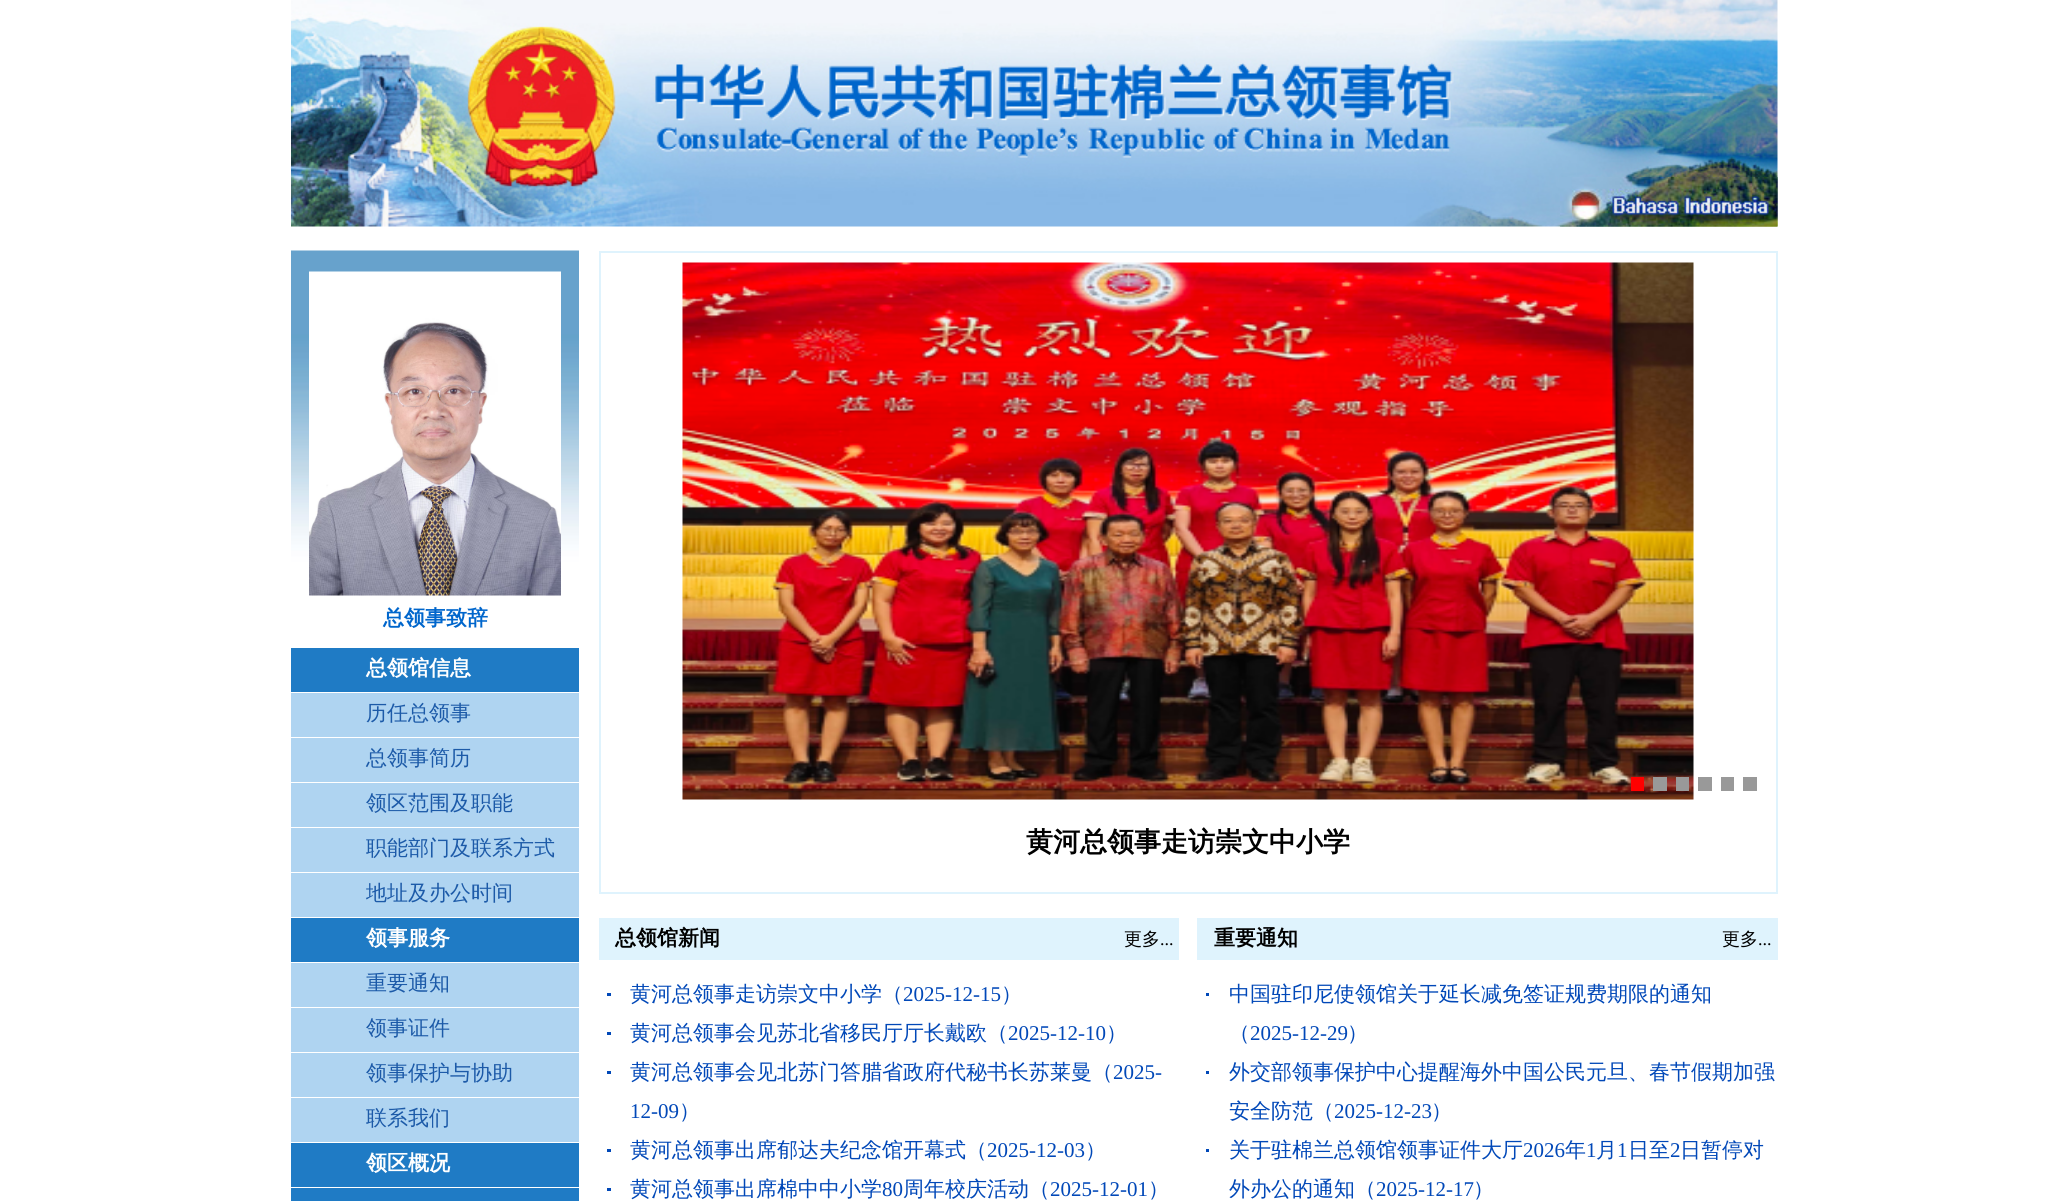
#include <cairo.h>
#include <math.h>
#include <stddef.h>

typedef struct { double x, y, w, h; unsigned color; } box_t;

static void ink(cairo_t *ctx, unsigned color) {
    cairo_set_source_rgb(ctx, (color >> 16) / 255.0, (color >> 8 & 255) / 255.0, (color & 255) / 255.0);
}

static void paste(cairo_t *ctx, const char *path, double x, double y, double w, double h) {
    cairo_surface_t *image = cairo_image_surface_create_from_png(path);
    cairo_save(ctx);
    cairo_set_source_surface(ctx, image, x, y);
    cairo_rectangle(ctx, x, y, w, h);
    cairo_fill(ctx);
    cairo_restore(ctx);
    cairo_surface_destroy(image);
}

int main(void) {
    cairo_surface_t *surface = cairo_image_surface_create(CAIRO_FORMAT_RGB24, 2068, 1201);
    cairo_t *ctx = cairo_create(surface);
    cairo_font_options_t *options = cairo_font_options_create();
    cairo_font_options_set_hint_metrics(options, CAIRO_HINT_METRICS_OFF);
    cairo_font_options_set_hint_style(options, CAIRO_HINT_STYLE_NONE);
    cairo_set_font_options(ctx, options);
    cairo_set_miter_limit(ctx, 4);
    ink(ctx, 0xFFFFFF);
    cairo_paint(ctx);
    paste(ctx, "media/1.png", 291, 0, 1487, 227);
    paste(ctx, "media/2.png", 1560, 177, 218, 50);
    paste(ctx, "media/3.png", 291, 250, 288, 398);
    paste(ctx, "media/4.png", 309, 271, 252, 325);
    cairo_select_font_face(ctx, "WenQuanYi Zen Hei", CAIRO_FONT_SLANT_NORMAL, CAIRO_FONT_WEIGHT_BOLD);
    cairo_set_font_size(ctx, 21);
    ink(ctx, 0x0066CC);
    cairo_move_to(ctx, 383, 625);
    cairo_show_text(ctx, "总领事致辞");
    ink(ctx, 0x1F7BC5);
    cairo_rectangle(ctx, 291, 648, 288, 44);
    cairo_fill(ctx);
    ink(ctx, 0xFFFFFF);
    cairo_move_to(ctx, 366, 675);
    cairo_show_text(ctx, "总领馆信息");
    ink(ctx, 0xAFD4F1);
    cairo_rectangle(ctx, 291, 693, 288, 44);
    cairo_fill(ctx);
    cairo_select_font_face(ctx, "WenQuanYi Zen Hei Medium", CAIRO_FONT_SLANT_NORMAL, CAIRO_FONT_WEIGHT_NORMAL);
    ink(ctx, 0x1C5AA8);
    cairo_move_to(ctx, 366, 720);
    cairo_show_text(ctx, "历任总领事");
    ink(ctx, 0xAFD4F1);
    cairo_rectangle(ctx, 291, 738, 288, 44);
    cairo_fill(ctx);
    ink(ctx, 0x1C5AA8);
    cairo_move_to(ctx, 366, 765);
    cairo_show_text(ctx, "总领事简历");
    ink(ctx, 0xAFD4F1);
    cairo_rectangle(ctx, 291, 783, 288, 44);
    cairo_fill(ctx);
    ink(ctx, 0x1C5AA8);
    cairo_move_to(ctx, 366, 810);
    cairo_show_text(ctx, "领区范围及职能");
    ink(ctx, 0xAFD4F1);
    cairo_rectangle(ctx, 291, 828, 288, 44);
    cairo_fill(ctx);
    ink(ctx, 0x1C5AA8);
    cairo_move_to(ctx, 366, 855);
    cairo_show_text(ctx, "职能部门及联系方式");
    ink(ctx, 0xAFD4F1);
    cairo_rectangle(ctx, 291, 873, 288, 44);
    cairo_fill(ctx);
    ink(ctx, 0x1C5AA8);
    cairo_move_to(ctx, 366, 900);
    cairo_show_text(ctx, "地址及办公时间");
    ink(ctx, 0x1F7BC5);
    cairo_rectangle(ctx, 291, 918, 288, 44);
    cairo_fill(ctx);
    cairo_select_font_face(ctx, "WenQuanYi Zen Hei", CAIRO_FONT_SLANT_NORMAL, CAIRO_FONT_WEIGHT_BOLD);
    ink(ctx, 0xFFFFFF);
    cairo_move_to(ctx, 366, 945);
    cairo_show_text(ctx, "领事服务");
    ink(ctx, 0xAFD4F1);
    cairo_rectangle(ctx, 291, 963, 288, 44);
    cairo_fill(ctx);
    cairo_select_font_face(ctx, "WenQuanYi Zen Hei Medium", CAIRO_FONT_SLANT_NORMAL, CAIRO_FONT_WEIGHT_NORMAL);
    ink(ctx, 0x1C5AA8);
    cairo_move_to(ctx, 366, 990);
    cairo_show_text(ctx, "重要通知");
    ink(ctx, 0xAFD4F1);
    cairo_rectangle(ctx, 291, 1008, 288, 44);
    cairo_fill(ctx);
    ink(ctx, 0x1C5AA8);
    cairo_move_to(ctx, 366, 1035);
    cairo_show_text(ctx, "领事证件");
    ink(ctx, 0xAFD4F1);
    cairo_rectangle(ctx, 291, 1053, 288, 44);
    cairo_fill(ctx);
    ink(ctx, 0x1C5AA8);
    cairo_move_to(ctx, 366, 1080);
    cairo_show_text(ctx, "领事保护与协助");
    ink(ctx, 0xAFD4F1);
    cairo_rectangle(ctx, 291, 1098, 288, 44);
    cairo_fill(ctx);
    ink(ctx, 0x1C5AA8);
    cairo_move_to(ctx, 366, 1125);
    cairo_show_text(ctx, "联系我们");
    ink(ctx, 0x1F7BC5);
    cairo_rectangle(ctx, 291, 1143, 288, 44);
    cairo_fill(ctx);
    cairo_select_font_face(ctx, "WenQuanYi Zen Hei", CAIRO_FONT_SLANT_NORMAL, CAIRO_FONT_WEIGHT_BOLD);
    ink(ctx, 0xFFFFFF);
    cairo_move_to(ctx, 366, 1170);
    cairo_show_text(ctx, "领区概况");
    ink(ctx, 0x1F7BC5);
    cairo_rectangle(ctx, 291, 1188, 288, 13);
    cairo_fill(ctx);
    cairo_rectangle(ctx, 600, 252, 1177, 641);
    ink(ctx, 0xDFF3FD);
    cairo_stroke(ctx);
    paste(ctx, "media/5.png", 682, 262, 1012, 538);
    {
        static const box_t items[] = {
            {1631, 777, 13, 14, 0xFF0000},
            {1653, 777, 14, 14, 0x999999},
            {1676, 777, 13, 14, 0x999999},
            {1698, 777, 14, 14, 0x999999},
            {1721, 777, 13, 14, 0x999999},
            {1743, 777, 14, 14, 0x999999},
        };
        for (size_t i = 0; i < sizeof items / sizeof *items; i++) {
            ink(ctx, items[i].color);
            cairo_rectangle(ctx, items[i].x, items[i].y, items[i].w, items[i].h);
            cairo_fill(ctx);
        }
    }
    cairo_set_font_size(ctx, 27);
    ink(ctx, 0x000000);
    cairo_move_to(ctx, 1026, 851);
    cairo_show_text(ctx, "黄河总领事走访崇文中小学");
    ink(ctx, 0xDFF3FD);
    cairo_rectangle(ctx, 599, 918, 580, 42);
    cairo_fill(ctx);
    cairo_set_font_size(ctx, 21);
    ink(ctx, 0x000000);
    cairo_move_to(ctx, 615, 945);
    cairo_show_text(ctx, "总领馆新闻");
    cairo_select_font_face(ctx, "WenQuanYi Zen Hei Medium", CAIRO_FONT_SLANT_NORMAL, CAIRO_FONT_WEIGHT_NORMAL);
    cairo_set_font_size(ctx, 18);
    cairo_move_to(ctx, 1124, 945);
    cairo_show_text(ctx, "更多");
    cairo_select_font_face(ctx, "Liberation Serif", CAIRO_FONT_SLANT_NORMAL, CAIRO_FONT_WEIGHT_NORMAL);
    cairo_move_to(ctx, 1160, 945);
    cairo_show_text(ctx, "...");
    ink(ctx, 0x0148B8);
    cairo_rectangle(ctx, 607, 993, 4, 3);
    cairo_fill(ctx);
    cairo_select_font_face(ctx, "WenQuanYi Zen Hei Medium", CAIRO_FONT_SLANT_NORMAL, CAIRO_FONT_WEIGHT_NORMAL);
    cairo_set_font_size(ctx, 21);
    cairo_move_to(ctx, 630, 1001);
    cairo_show_text(ctx, "黄河总领事走访崇文中小学（");
    cairo_select_font_face(ctx, "Liberation Serif", CAIRO_FONT_SLANT_NORMAL, CAIRO_FONT_WEIGHT_NORMAL);
    cairo_move_to(ctx, 903, 1001);
    cairo_show_text(ctx, "2025-12-15");
    cairo_select_font_face(ctx, "WenQuanYi Zen Hei Medium", CAIRO_FONT_SLANT_NORMAL, CAIRO_FONT_WEIGHT_NORMAL);
    cairo_move_to(ctx, 1001, 1001);
    cairo_show_text(ctx, "）");
    cairo_rectangle(ctx, 607, 1032, 4, 3);
    cairo_fill(ctx);
    cairo_move_to(ctx, 630, 1040);
    cairo_show_text(ctx, "黄河总领事会见苏北省移民厅厅长戴欧（");
    cairo_select_font_face(ctx, "Liberation Serif", CAIRO_FONT_SLANT_NORMAL, CAIRO_FONT_WEIGHT_NORMAL);
    cairo_move_to(ctx, 1008, 1040);
    cairo_show_text(ctx, "2025-12-10");
    cairo_select_font_face(ctx, "WenQuanYi Zen Hei Medium", CAIRO_FONT_SLANT_NORMAL, CAIRO_FONT_WEIGHT_NORMAL);
    cairo_move_to(ctx, 1106, 1040);
    cairo_show_text(ctx, "）");
    cairo_rectangle(ctx, 607, 1071, 4, 3);
    cairo_fill(ctx);
    cairo_move_to(ctx, 630, 1079);
    cairo_show_text(ctx, "黄河总领事会见北苏门答腊省政府代秘书长苏莱曼（");
    cairo_select_font_face(ctx, "Liberation Serif", CAIRO_FONT_SLANT_NORMAL, CAIRO_FONT_WEIGHT_NORMAL);
    cairo_move_to(ctx, 1113, 1079);
    cairo_show_text(ctx, "2025-");
    cairo_move_to(ctx, 630, 1118);
    cairo_show_text(ctx, "12-09");
    cairo_select_font_face(ctx, "WenQuanYi Zen Hei Medium", CAIRO_FONT_SLANT_NORMAL, CAIRO_FONT_WEIGHT_NORMAL);
    cairo_move_to(ctx, 679, 1118);
    cairo_show_text(ctx, "）");
    cairo_rectangle(ctx, 607, 1149, 4, 3);
    cairo_fill(ctx);
    cairo_move_to(ctx, 630, 1157);
    cairo_show_text(ctx, "黄河总领事出席郁达夫纪念馆开幕式（");
    cairo_select_font_face(ctx, "Liberation Serif", CAIRO_FONT_SLANT_NORMAL, CAIRO_FONT_WEIGHT_NORMAL);
    cairo_move_to(ctx, 987, 1157);
    cairo_show_text(ctx, "2025-12-03");
    cairo_select_font_face(ctx, "WenQuanYi Zen Hei Medium", CAIRO_FONT_SLANT_NORMAL, CAIRO_FONT_WEIGHT_NORMAL);
    cairo_move_to(ctx, 1085, 1157);
    cairo_show_text(ctx, "）");
    cairo_rectangle(ctx, 607, 1188, 4, 3);
    cairo_fill(ctx);
    cairo_move_to(ctx, 630, 1196);
    cairo_show_text(ctx, "黄河总领事出席棉中中小学");
    cairo_select_font_face(ctx, "Liberation Serif", CAIRO_FONT_SLANT_NORMAL, CAIRO_FONT_WEIGHT_NORMAL);
    cairo_move_to(ctx, 882, 1196);
    cairo_show_text(ctx, "80");
    cairo_select_font_face(ctx, "WenQuanYi Zen Hei Medium", CAIRO_FONT_SLANT_NORMAL, CAIRO_FONT_WEIGHT_NORMAL);
    cairo_move_to(ctx, 903, 1196);
    cairo_show_text(ctx, "周年校庆活动（");
    cairo_select_font_face(ctx, "Liberation Serif", CAIRO_FONT_SLANT_NORMAL, CAIRO_FONT_WEIGHT_NORMAL);
    cairo_move_to(ctx, 1050, 1196);
    cairo_show_text(ctx, "2025-12-01");
    cairo_select_font_face(ctx, "WenQuanYi Zen Hei Medium", CAIRO_FONT_SLANT_NORMAL, CAIRO_FONT_WEIGHT_NORMAL);
    cairo_move_to(ctx, 1148, 1196);
    cairo_show_text(ctx, "）");
    ink(ctx, 0xDFF3FD);
    cairo_rectangle(ctx, 1197, 918, 581, 42);
    cairo_fill(ctx);
    cairo_select_font_face(ctx, "WenQuanYi Zen Hei", CAIRO_FONT_SLANT_NORMAL, CAIRO_FONT_WEIGHT_BOLD);
    ink(ctx, 0x000000);
    cairo_move_to(ctx, 1214, 945);
    cairo_show_text(ctx, "重要通知");
    cairo_select_font_face(ctx, "WenQuanYi Zen Hei Medium", CAIRO_FONT_SLANT_NORMAL, CAIRO_FONT_WEIGHT_NORMAL);
    cairo_set_font_size(ctx, 18);
    cairo_move_to(ctx, 1722, 945);
    cairo_show_text(ctx, "更多");
    cairo_select_font_face(ctx, "Liberation Serif", CAIRO_FONT_SLANT_NORMAL, CAIRO_FONT_WEIGHT_NORMAL);
    cairo_move_to(ctx, 1758, 945);
    cairo_show_text(ctx, "...");
    ink(ctx, 0x0148B8);
    cairo_rectangle(ctx, 1206, 993, 3, 3);
    cairo_fill(ctx);
    cairo_select_font_face(ctx, "WenQuanYi Zen Hei Medium", CAIRO_FONT_SLANT_NORMAL, CAIRO_FONT_WEIGHT_NORMAL);
    cairo_set_font_size(ctx, 21);
    cairo_move_to(ctx, 1229, 1001);
    cairo_show_text(ctx, "中国驻印尼使领馆关于延长减免签证规费期限的通知");
    cairo_move_to(ctx, 1229, 1040);
    cairo_show_text(ctx, "（");
    cairo_select_font_face(ctx, "Liberation Serif", CAIRO_FONT_SLANT_NORMAL, CAIRO_FONT_WEIGHT_NORMAL);
    cairo_move_to(ctx, 1250, 1040);
    cairo_show_text(ctx, "2025-12-29");
    cairo_select_font_face(ctx, "WenQuanYi Zen Hei Medium", CAIRO_FONT_SLANT_NORMAL, CAIRO_FONT_WEIGHT_NORMAL);
    cairo_move_to(ctx, 1347, 1040);
    cairo_show_text(ctx, "）");
    cairo_rectangle(ctx, 1206, 1071, 3, 3);
    cairo_fill(ctx);
    cairo_move_to(ctx, 1229, 1079);
    cairo_show_text(ctx, "外交部领事保护中心提醒海外中国公民元旦、春节假期加强");
    cairo_move_to(ctx, 1229, 1118);
    cairo_show_text(ctx, "安全防范（");
    cairo_select_font_face(ctx, "Liberation Serif", CAIRO_FONT_SLANT_NORMAL, CAIRO_FONT_WEIGHT_NORMAL);
    cairo_move_to(ctx, 1334, 1118);
    cairo_show_text(ctx, "2025-12-23");
    cairo_select_font_face(ctx, "WenQuanYi Zen Hei Medium", CAIRO_FONT_SLANT_NORMAL, CAIRO_FONT_WEIGHT_NORMAL);
    cairo_move_to(ctx, 1431, 1118);
    cairo_show_text(ctx, "）");
    cairo_rectangle(ctx, 1206, 1149, 3, 3);
    cairo_fill(ctx);
    cairo_move_to(ctx, 1229, 1157);
    cairo_show_text(ctx, "关于驻棉兰总领馆领事证件大厅");
    cairo_select_font_face(ctx, "Liberation Serif", CAIRO_FONT_SLANT_NORMAL, CAIRO_FONT_WEIGHT_NORMAL);
    cairo_move_to(ctx, 1523, 1157);
    cairo_show_text(ctx, "2026");
    cairo_select_font_face(ctx, "WenQuanYi Zen Hei Medium", CAIRO_FONT_SLANT_NORMAL, CAIRO_FONT_WEIGHT_NORMAL);
    cairo_move_to(ctx, 1565, 1157);
    cairo_show_text(ctx, "年");
    cairo_select_font_face(ctx, "Liberation Serif", CAIRO_FONT_SLANT_NORMAL, CAIRO_FONT_WEIGHT_NORMAL);
    cairo_move_to(ctx, 1586, 1157);
    cairo_show_text(ctx, "1");
    cairo_select_font_face(ctx, "WenQuanYi Zen Hei Medium", CAIRO_FONT_SLANT_NORMAL, CAIRO_FONT_WEIGHT_NORMAL);
    cairo_move_to(ctx, 1596, 1157);
    cairo_show_text(ctx, "月");
    cairo_select_font_face(ctx, "Liberation Serif", CAIRO_FONT_SLANT_NORMAL, CAIRO_FONT_WEIGHT_NORMAL);
    cairo_move_to(ctx, 1617, 1157);
    cairo_show_text(ctx, "1");
    cairo_select_font_face(ctx, "WenQuanYi Zen Hei Medium", CAIRO_FONT_SLANT_NORMAL, CAIRO_FONT_WEIGHT_NORMAL);
    cairo_move_to(ctx, 1628, 1157);
    cairo_show_text(ctx, "日至");
    cairo_select_font_face(ctx, "Liberation Serif", CAIRO_FONT_SLANT_NORMAL, CAIRO_FONT_WEIGHT_NORMAL);
    cairo_move_to(ctx, 1670, 1157);
    cairo_show_text(ctx, "2");
    cairo_select_font_face(ctx, "WenQuanYi Zen Hei Medium", CAIRO_FONT_SLANT_NORMAL, CAIRO_FONT_WEIGHT_NORMAL);
    cairo_move_to(ctx, 1680, 1157);
    cairo_show_text(ctx, "日暂停对");
    cairo_move_to(ctx, 1229, 1196);
    cairo_show_text(ctx, "外办公的通知（");
    cairo_select_font_face(ctx, "Liberation Serif", CAIRO_FONT_SLANT_NORMAL, CAIRO_FONT_WEIGHT_NORMAL);
    cairo_move_to(ctx, 1376, 1196);
    cairo_show_text(ctx, "2025-12-17");
    cairo_select_font_face(ctx, "WenQuanYi Zen Hei Medium", CAIRO_FONT_SLANT_NORMAL, CAIRO_FONT_WEIGHT_NORMAL);
    cairo_move_to(ctx, 1473, 1196);
    cairo_show_text(ctx, "）");
    cairo_surface_write_to_png(surface, "image.png");
    cairo_font_options_destroy(options);
    cairo_destroy(ctx);
    cairo_surface_destroy(surface);
    return 0;
}
